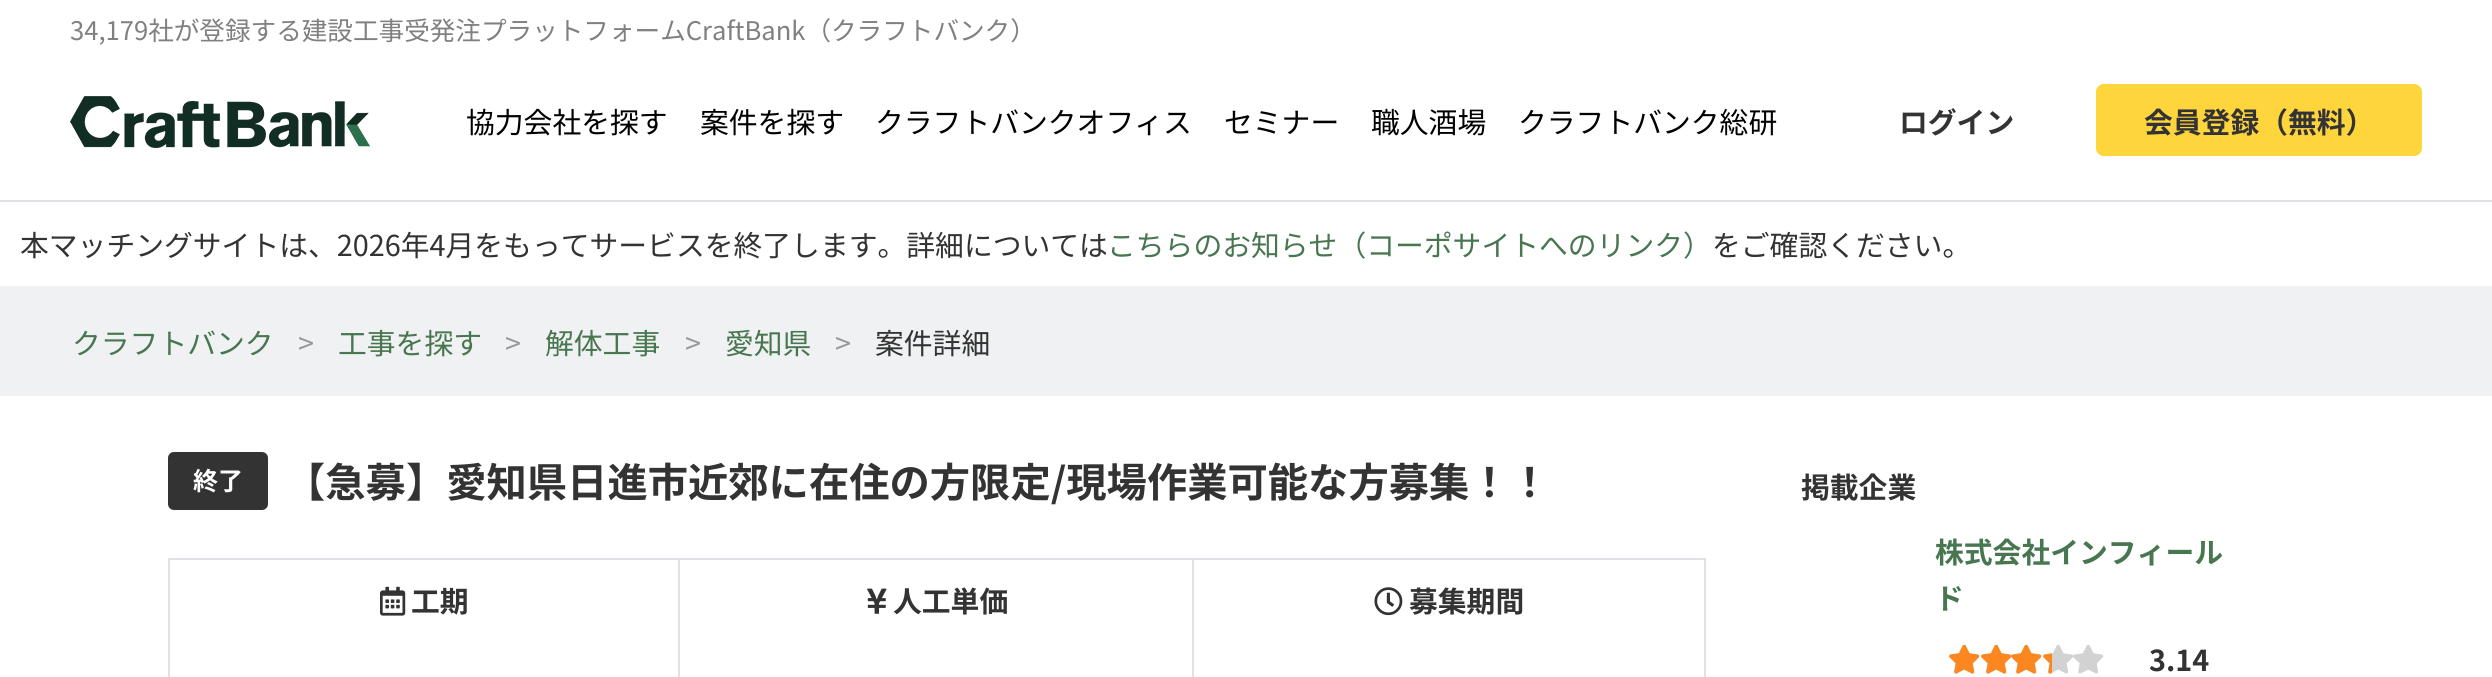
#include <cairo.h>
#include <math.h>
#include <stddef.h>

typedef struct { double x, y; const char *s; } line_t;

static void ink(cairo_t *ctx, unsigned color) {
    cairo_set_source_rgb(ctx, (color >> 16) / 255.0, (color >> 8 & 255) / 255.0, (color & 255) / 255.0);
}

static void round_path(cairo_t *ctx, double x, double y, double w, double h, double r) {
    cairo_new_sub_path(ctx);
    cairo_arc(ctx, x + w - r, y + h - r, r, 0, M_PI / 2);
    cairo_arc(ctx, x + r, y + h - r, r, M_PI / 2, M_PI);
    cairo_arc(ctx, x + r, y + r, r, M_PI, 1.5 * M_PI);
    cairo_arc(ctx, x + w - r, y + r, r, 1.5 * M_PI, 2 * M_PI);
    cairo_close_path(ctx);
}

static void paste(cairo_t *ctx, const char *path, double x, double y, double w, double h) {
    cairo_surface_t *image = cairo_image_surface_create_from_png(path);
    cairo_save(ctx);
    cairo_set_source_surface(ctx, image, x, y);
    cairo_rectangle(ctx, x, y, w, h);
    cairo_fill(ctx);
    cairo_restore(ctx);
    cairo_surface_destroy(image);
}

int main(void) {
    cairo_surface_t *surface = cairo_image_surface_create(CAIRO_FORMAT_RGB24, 2492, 677);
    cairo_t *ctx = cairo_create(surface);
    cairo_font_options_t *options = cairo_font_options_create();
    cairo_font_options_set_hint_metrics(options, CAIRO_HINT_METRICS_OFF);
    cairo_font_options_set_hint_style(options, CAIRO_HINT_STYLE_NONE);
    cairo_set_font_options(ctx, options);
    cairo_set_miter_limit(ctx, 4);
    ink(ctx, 0xFFFFFF);
    cairo_paint(ctx);
    ink(ctx, 0xDEE2E6);
    cairo_rectangle(ctx, 0, 200, 2492, 2);
    cairo_fill(ctx);
    cairo_select_font_face(ctx, "Noto Sans JP", CAIRO_FONT_SLANT_NORMAL, CAIRO_FONT_WEIGHT_NORMAL);
    cairo_set_font_size(ctx, 25.6);
    ink(ctx, 0x808080);
    cairo_move_to(ctx, 70, 40);
    cairo_show_text(ctx, "34,179社が登録する建設工事受発注プラットフォームCraftBank（クラフトバンク）");
    paste(ctx, "media/1.png", 70, 96, 300, 52);
    cairo_set_font_size(ctx, 28.8);
    ink(ctx, 0x000000);
    {
        static const line_t items[] = {
            {466, 133, "協力会社を探す"},
            {700, 133, "案件を探す"},
            {875, 133, "クラフトバンクオフィス"},
            {1224, 133, "セミナー"},
            {1371, 133, "職人酒場"},
            {1518, 133, "クラフトバンク総研"},
        };
        for (size_t i = 0; i < sizeof items / sizeof *items; i++) {
            cairo_move_to(ctx, items[i].x, items[i].y);
            cairo_show_text(ctx, items[i].s);
        }
    }
    cairo_select_font_face(ctx, "Noto Sans JP", CAIRO_FONT_SLANT_NORMAL, CAIRO_FONT_WEIGHT_BOLD);
    ink(ctx, 0x333333);
    cairo_move_to(ctx, 1899, 133);
    cairo_show_text(ctx, "ログイン");
    ink(ctx, 0xFFD53D);
    round_path(ctx, 2096, 84, 326, 72, 8);
    cairo_fill(ctx);
    ink(ctx, 0x333333);
    cairo_move_to(ctx, 2144, 133);
    cairo_show_text(ctx, "会員登録（無料）");
    cairo_select_font_face(ctx, "Noto Sans JP", CAIRO_FONT_SLANT_NORMAL, CAIRO_FONT_WEIGHT_NORMAL);
    cairo_move_to(ctx, 20, 256);
    cairo_show_text(ctx, "本マッチングサイトは、2026年4月をもってサービスを終了します。詳細については");
    ink(ctx, 0x477650);
    cairo_move_to(ctx, 1107, 256);
    cairo_show_text(ctx, "こちらのお知らせ（コーポサイトへのリンク）");
    ink(ctx, 0x333333);
    cairo_move_to(ctx, 1712, 256);
    cairo_show_text(ctx, "をご確認ください。");
    ink(ctx, 0xF0F1F2);
    cairo_rectangle(ctx, 0, 286, 2492, 110);
    cairo_fill(ctx);
    ink(ctx, 0x477650);
    cairo_move_to(ctx, 72, 354);
    cairo_show_text(ctx, "クラフトバンク");
    ink(ctx, 0x999999);
    cairo_move_to(ctx, 298, 354);
    cairo_show_text(ctx, ">");
    ink(ctx, 0x477650);
    cairo_move_to(ctx, 338, 354);
    cairo_show_text(ctx, "工事を探す");
    ink(ctx, 0x999999);
    cairo_move_to(ctx, 505, 354);
    cairo_show_text(ctx, ">");
    ink(ctx, 0x477650);
    cairo_move_to(ctx, 545, 354);
    cairo_show_text(ctx, "解体工事");
    ink(ctx, 0x999999);
    cairo_move_to(ctx, 685, 354);
    cairo_show_text(ctx, ">");
    ink(ctx, 0x477650);
    cairo_move_to(ctx, 725, 354);
    cairo_show_text(ctx, "愛知県");
    ink(ctx, 0x999999);
    cairo_move_to(ctx, 835, 354);
    cairo_show_text(ctx, ">");
    ink(ctx, 0x333333);
    cairo_move_to(ctx, 875, 354);
    cairo_show_text(ctx, "案件詳細");
    round_path(ctx, 169, 453, 98, 56, 5);
    cairo_fill_preserve(ctx);
    cairo_stroke(ctx);
    cairo_select_font_face(ctx, "Noto Sans JP", CAIRO_FONT_SLANT_NORMAL, CAIRO_FONT_WEIGHT_BOLD);
    cairo_set_font_size(ctx, 25);
    ink(ctx, 0xFFFFFF);
    cairo_move_to(ctx, 193, 490);
    cairo_show_text(ctx, "終了");
    cairo_set_font_size(ctx, 40.3);
    ink(ctx, 0x333333);
    cairo_move_to(ctx, 285, 497);
    cairo_show_text(ctx, "【急募】愛知県日進市近郊に在住の方限定/現場作業可能な方募集！！");
    cairo_rectangle(ctx, 169, 559, 510, 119);
    ink(ctx, 0xDEE2E6);
    cairo_stroke(ctx);
    paste(ctx, "media/2.png", 380, 586, 26, 30);
    cairo_set_font_size(ctx, 28.8);
    ink(ctx, 0x333333);
    cairo_move_to(ctx, 411, 612);
    cairo_show_text(ctx, "工期");
    ink(ctx, 0xDEE2E6);
    cairo_rectangle(ctx, 680, 558, 512, 2);
    cairo_fill(ctx);
    paste(ctx, "media/3.png", 867, 588, 20, 26);
    ink(ctx, 0x333333);
    cairo_move_to(ctx, 893, 612);
    cairo_show_text(ctx, "人工単価");
    cairo_rectangle(ctx, 1193, 559, 512, 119);
    ink(ctx, 0xDEE2E6);
    cairo_stroke(ctx);
    paste(ctx, "media/4.png", 1374, 587, 29, 29);
    ink(ctx, 0x333333);
    cairo_move_to(ctx, 1409, 612);
    cairo_show_text(ctx, "募集期間");
    cairo_move_to(ctx, 1801, 498);
    cairo_show_text(ctx, "掲載企業");
    ink(ctx, 0x477650);
    cairo_move_to(ctx, 1935, 563);
    cairo_show_text(ctx, "株式会社インフィール");
    cairo_move_to(ctx, 1935, 609);
    cairo_show_text(ctx, "ド");
    paste(ctx, "media/5.png", 1949, 644, 31, 30);
    paste(ctx, "media/5.png", 1981, 644, 31, 30);
    paste(ctx, "media/6.png", 2011, 644, 31, 30);
    paste(ctx, "media/5.png", 2043, 644, 31, 30);
    paste(ctx, "media/6.png", 2073, 644, 31, 30);
    paste(ctx, "media/7.png", 1949, 644, 31, 30);
    paste(ctx, "media/8.png", 1981, 644, 31, 30);
    paste(ctx, "media/9.png", 2011, 644, 31, 30);
    paste(ctx, "media/10.png", 2043, 653, 9, 21);
    ink(ctx, 0x333333);
    cairo_move_to(ctx, 2149, 671);
    cairo_show_text(ctx, "3.14");
    cairo_surface_write_to_png(surface, "image.png");
    cairo_font_options_destroy(options);
    cairo_destroy(ctx);
    cairo_surface_destroy(surface);
    return 0;
}
